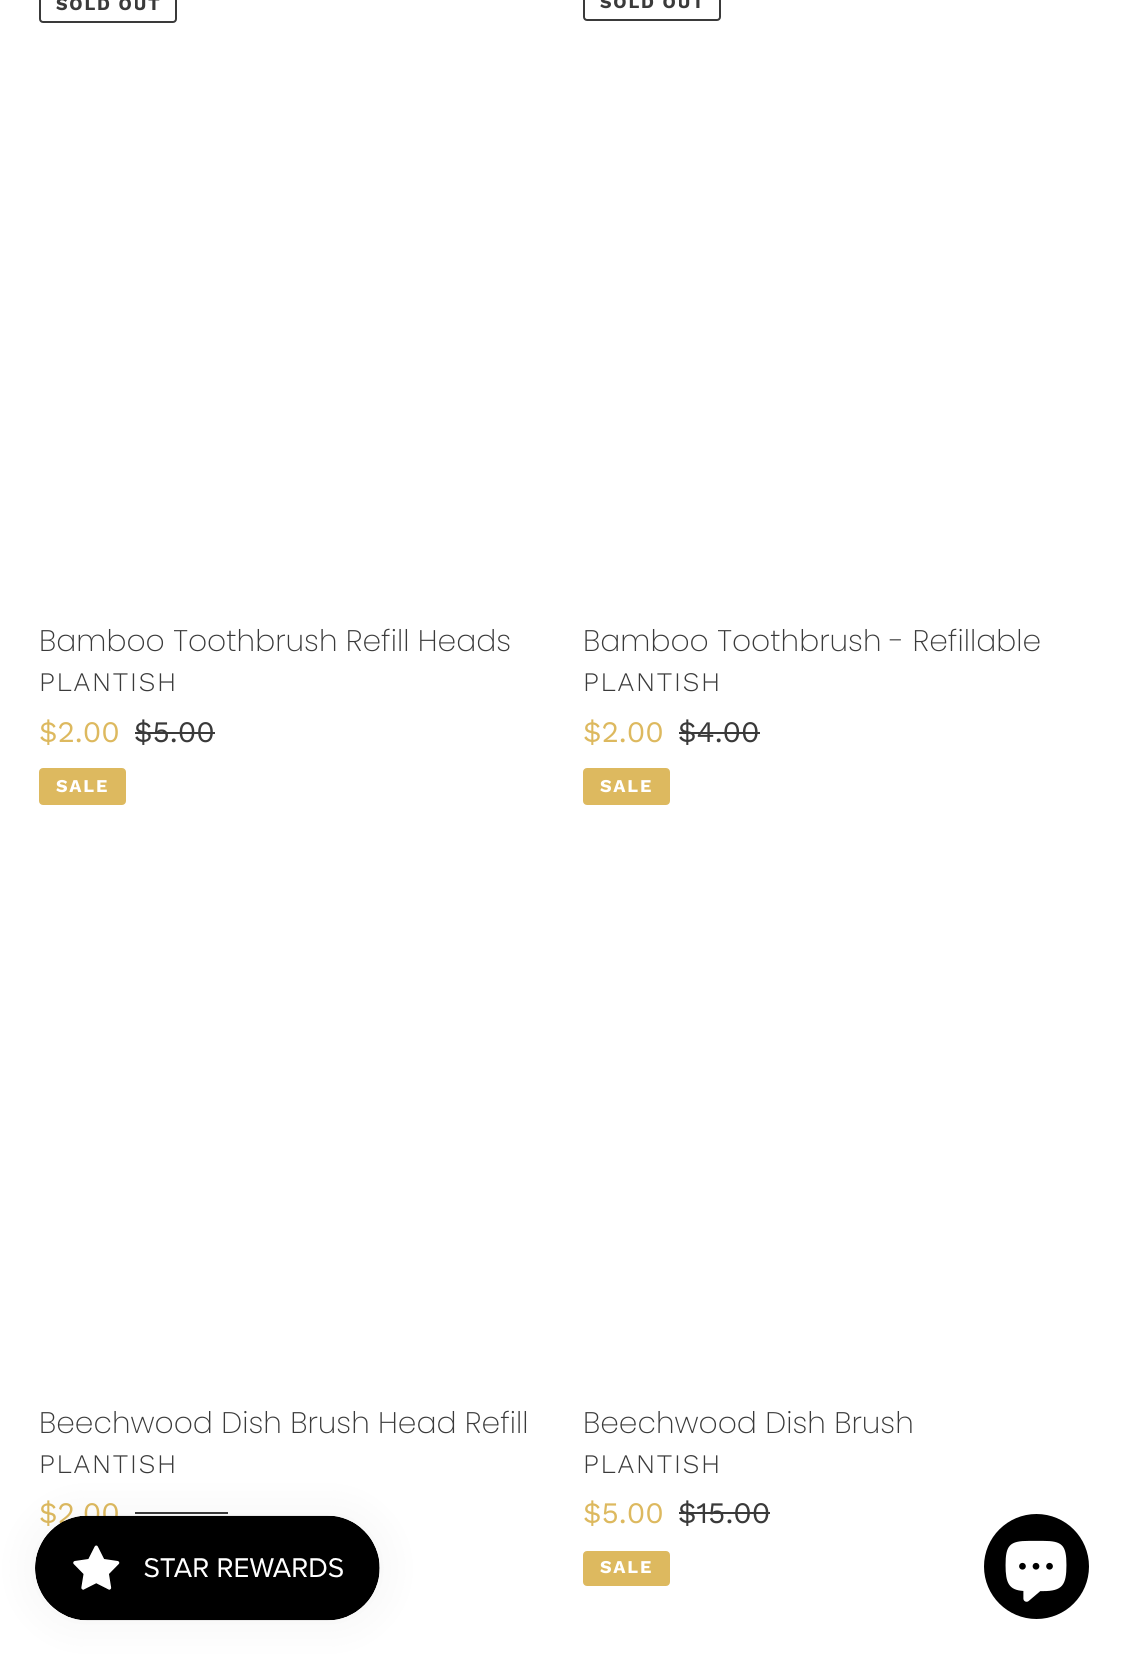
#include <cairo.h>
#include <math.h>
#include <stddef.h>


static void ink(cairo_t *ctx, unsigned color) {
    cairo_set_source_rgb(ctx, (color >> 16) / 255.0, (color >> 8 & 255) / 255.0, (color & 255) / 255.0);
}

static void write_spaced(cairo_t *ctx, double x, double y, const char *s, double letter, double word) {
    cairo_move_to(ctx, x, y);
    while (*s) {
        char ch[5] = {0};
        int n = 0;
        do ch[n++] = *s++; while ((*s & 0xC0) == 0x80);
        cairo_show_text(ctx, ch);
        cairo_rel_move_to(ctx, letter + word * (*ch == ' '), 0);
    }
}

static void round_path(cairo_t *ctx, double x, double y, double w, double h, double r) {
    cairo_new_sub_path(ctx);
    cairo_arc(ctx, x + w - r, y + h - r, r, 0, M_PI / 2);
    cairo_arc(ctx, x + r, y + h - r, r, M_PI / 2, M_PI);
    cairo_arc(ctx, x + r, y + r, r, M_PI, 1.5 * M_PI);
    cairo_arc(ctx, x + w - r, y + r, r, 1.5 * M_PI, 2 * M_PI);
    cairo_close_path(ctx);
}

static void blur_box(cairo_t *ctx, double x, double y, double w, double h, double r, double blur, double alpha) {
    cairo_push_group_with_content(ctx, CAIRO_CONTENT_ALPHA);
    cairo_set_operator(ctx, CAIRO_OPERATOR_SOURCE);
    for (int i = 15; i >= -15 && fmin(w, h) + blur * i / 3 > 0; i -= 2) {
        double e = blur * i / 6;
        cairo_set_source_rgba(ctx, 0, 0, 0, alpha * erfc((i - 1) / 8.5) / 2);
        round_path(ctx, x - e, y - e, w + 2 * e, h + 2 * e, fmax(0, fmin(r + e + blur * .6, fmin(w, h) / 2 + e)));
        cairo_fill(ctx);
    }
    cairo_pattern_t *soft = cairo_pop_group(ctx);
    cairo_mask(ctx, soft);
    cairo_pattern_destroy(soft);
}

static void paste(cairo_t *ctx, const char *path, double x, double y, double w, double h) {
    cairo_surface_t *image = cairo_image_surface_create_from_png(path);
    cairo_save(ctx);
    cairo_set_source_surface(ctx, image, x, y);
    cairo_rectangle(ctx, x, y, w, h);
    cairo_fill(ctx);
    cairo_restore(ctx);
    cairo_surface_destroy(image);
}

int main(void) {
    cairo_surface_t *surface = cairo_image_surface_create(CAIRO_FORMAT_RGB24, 1127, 1655);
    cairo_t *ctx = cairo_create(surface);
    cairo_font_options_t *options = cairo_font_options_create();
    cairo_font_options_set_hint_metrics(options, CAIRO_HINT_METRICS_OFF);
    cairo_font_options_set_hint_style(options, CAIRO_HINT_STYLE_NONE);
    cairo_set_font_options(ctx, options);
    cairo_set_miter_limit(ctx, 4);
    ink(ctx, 0xFFFFFF);
    cairo_paint(ctx);
    round_path(ctx, 40, -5, 136, 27, 3);
    ink(ctx, 0x3A3A3A);
    cairo_stroke(ctx);
    cairo_select_font_face(ctx, "Work Sans", CAIRO_FONT_SLANT_NORMAL, CAIRO_FONT_WEIGHT_BOLD);
    cairo_set_font_size(ctx, 18);
    write_spaced(ctx, 56, 10, "SOLD OUT", 1.75, 0);
    round_path(ctx, 584, -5, 136, 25, 3);
    cairo_stroke(ctx);
    write_spaced(ctx, 600, 8, "SOLD OUT", 1.75, 0);
    cairo_select_font_face(ctx, "Poppins Light", CAIRO_FONT_SLANT_NORMAL, CAIRO_FONT_WEIGHT_NORMAL);
    cairo_set_font_size(ctx, 29.75);
    cairo_move_to(ctx, 39, 651);
    cairo_show_text(ctx, "Bamboo Toothbrush Refill Heads");
    cairo_select_font_face(ctx, "Work Sans Light", CAIRO_FONT_SLANT_NORMAL, CAIRO_FONT_WEIGHT_NORMAL);
    cairo_set_font_size(ctx, 26.75);
    write_spaced(ctx, 39, 691, "PLANTISH", 1.75, 0);
    cairo_select_font_face(ctx, "Work Sans", CAIRO_FONT_SLANT_NORMAL, CAIRO_FONT_WEIGHT_NORMAL);
    cairo_set_font_size(ctx, 29.75);
    ink(ctx, 0xDDB95F);
    cairo_move_to(ctx, 39, 742);
    cairo_show_text(ctx, "$2.00");
    ink(ctx, 0x3A3A3A);
    cairo_move_to(ctx, 134, 742);
    cairo_show_text(ctx, "$5.00");
    cairo_rectangle(ctx, 135, 732, 80, 2);
    cairo_fill(ctx);
    ink(ctx, 0xDDB95F);
    round_path(ctx, 40, 769, 85, 35, 3);
    cairo_fill_preserve(ctx);
    cairo_stroke(ctx);
    cairo_select_font_face(ctx, "Work Sans", CAIRO_FONT_SLANT_NORMAL, CAIRO_FONT_WEIGHT_BOLD);
    cairo_set_font_size(ctx, 18);
    ink(ctx, 0xFFFFFF);
    write_spaced(ctx, 56, 792, "SALE", 1.75, 0);
    cairo_select_font_face(ctx, "Poppins Light", CAIRO_FONT_SLANT_NORMAL, CAIRO_FONT_WEIGHT_NORMAL);
    cairo_set_font_size(ctx, 29.75);
    ink(ctx, 0x3A3A3A);
    cairo_move_to(ctx, 583, 651);
    cairo_show_text(ctx, "Bamboo Toothbrush - Refillable");
    cairo_select_font_face(ctx, "Work Sans Light", CAIRO_FONT_SLANT_NORMAL, CAIRO_FONT_WEIGHT_NORMAL);
    cairo_set_font_size(ctx, 26.75);
    write_spaced(ctx, 583, 691, "PLANTISH", 1.75, 0);
    cairo_select_font_face(ctx, "Work Sans", CAIRO_FONT_SLANT_NORMAL, CAIRO_FONT_WEIGHT_NORMAL);
    cairo_set_font_size(ctx, 29.75);
    ink(ctx, 0xDDB95F);
    cairo_move_to(ctx, 583, 742);
    cairo_show_text(ctx, "$2.00");
    ink(ctx, 0x3A3A3A);
    cairo_move_to(ctx, 678, 742);
    cairo_show_text(ctx, "$4.00");
    cairo_rectangle(ctx, 679, 732, 81, 2);
    cairo_fill(ctx);
    ink(ctx, 0xDDB95F);
    round_path(ctx, 584, 769, 85, 35, 3);
    cairo_fill_preserve(ctx);
    cairo_stroke(ctx);
    cairo_select_font_face(ctx, "Work Sans", CAIRO_FONT_SLANT_NORMAL, CAIRO_FONT_WEIGHT_BOLD);
    cairo_set_font_size(ctx, 18);
    ink(ctx, 0xFFFFFF);
    write_spaced(ctx, 600, 792, "SALE", 1.75, 0);
    cairo_select_font_face(ctx, "Poppins Light", CAIRO_FONT_SLANT_NORMAL, CAIRO_FONT_WEIGHT_NORMAL);
    cairo_set_font_size(ctx, 29.75);
    ink(ctx, 0x3A3A3A);
    cairo_move_to(ctx, 39, 1433);
    cairo_show_text(ctx, "Beechwood Dish Brush Head Refill");
    cairo_select_font_face(ctx, "Work Sans Light", CAIRO_FONT_SLANT_NORMAL, CAIRO_FONT_WEIGHT_NORMAL);
    cairo_set_font_size(ctx, 26.75);
    write_spaced(ctx, 39, 1473, "PLANTISH", 1.75, 0);
    cairo_select_font_face(ctx, "Work Sans", CAIRO_FONT_SLANT_NORMAL, CAIRO_FONT_WEIGHT_NORMAL);
    cairo_set_font_size(ctx, 29.75);
    ink(ctx, 0xDDB95F);
    cairo_move_to(ctx, 39, 1523);
    cairo_show_text(ctx, "$2.00");
    ink(ctx, 0x3A3A3A);
    cairo_rectangle(ctx, 135, 1512, 93, 2);
    cairo_fill(ctx);
    cairo_select_font_face(ctx, "Poppins Light", CAIRO_FONT_SLANT_NORMAL, CAIRO_FONT_WEIGHT_NORMAL);
    cairo_move_to(ctx, 583, 1433);
    cairo_show_text(ctx, "Beechwood Dish Brush");
    cairo_select_font_face(ctx, "Work Sans Light", CAIRO_FONT_SLANT_NORMAL, CAIRO_FONT_WEIGHT_NORMAL);
    cairo_set_font_size(ctx, 26.75);
    write_spaced(ctx, 583, 1473, "PLANTISH", 1.75, 0);
    cairo_select_font_face(ctx, "Work Sans", CAIRO_FONT_SLANT_NORMAL, CAIRO_FONT_WEIGHT_NORMAL);
    cairo_set_font_size(ctx, 29.75);
    ink(ctx, 0xDDB95F);
    cairo_move_to(ctx, 583, 1523);
    cairo_show_text(ctx, "$5.00");
    ink(ctx, 0x3A3A3A);
    cairo_move_to(ctx, 678, 1523);
    cairo_show_text(ctx, "$15.00");
    cairo_rectangle(ctx, 679, 1512, 91, 2);
    cairo_fill(ctx);
    ink(ctx, 0xDDB95F);
    round_path(ctx, 584, 1552, 85, 33, 3);
    cairo_fill_preserve(ctx);
    cairo_stroke(ctx);
    cairo_select_font_face(ctx, "Work Sans", CAIRO_FONT_SLANT_NORMAL, CAIRO_FONT_WEIGHT_BOLD);
    cairo_set_font_size(ctx, 18);
    ink(ctx, 0xFFFFFF);
    write_spaced(ctx, 600, 1573, "SALE", 1.75, 0);
    ink(ctx, 0x000000);
    blur_box(ctx, 35, 1516, 345, 105, 52.5, 22, 0.05);
    paste(ctx, "media/1.png", 35, 1515, 345, 106);
    ink(ctx, 0x000000);
    cairo_arc(ctx, 1036.5, 1566.5, 52.5, 0, 2 * M_PI);
    cairo_fill(ctx);
    paste(ctx, "media/2.png", 1005, 1540, 62, 62);
    cairo_surface_write_to_png(surface, "image.png");
    cairo_font_options_destroy(options);
    cairo_destroy(ctx);
    cairo_surface_destroy(surface);
    return 0;
}
